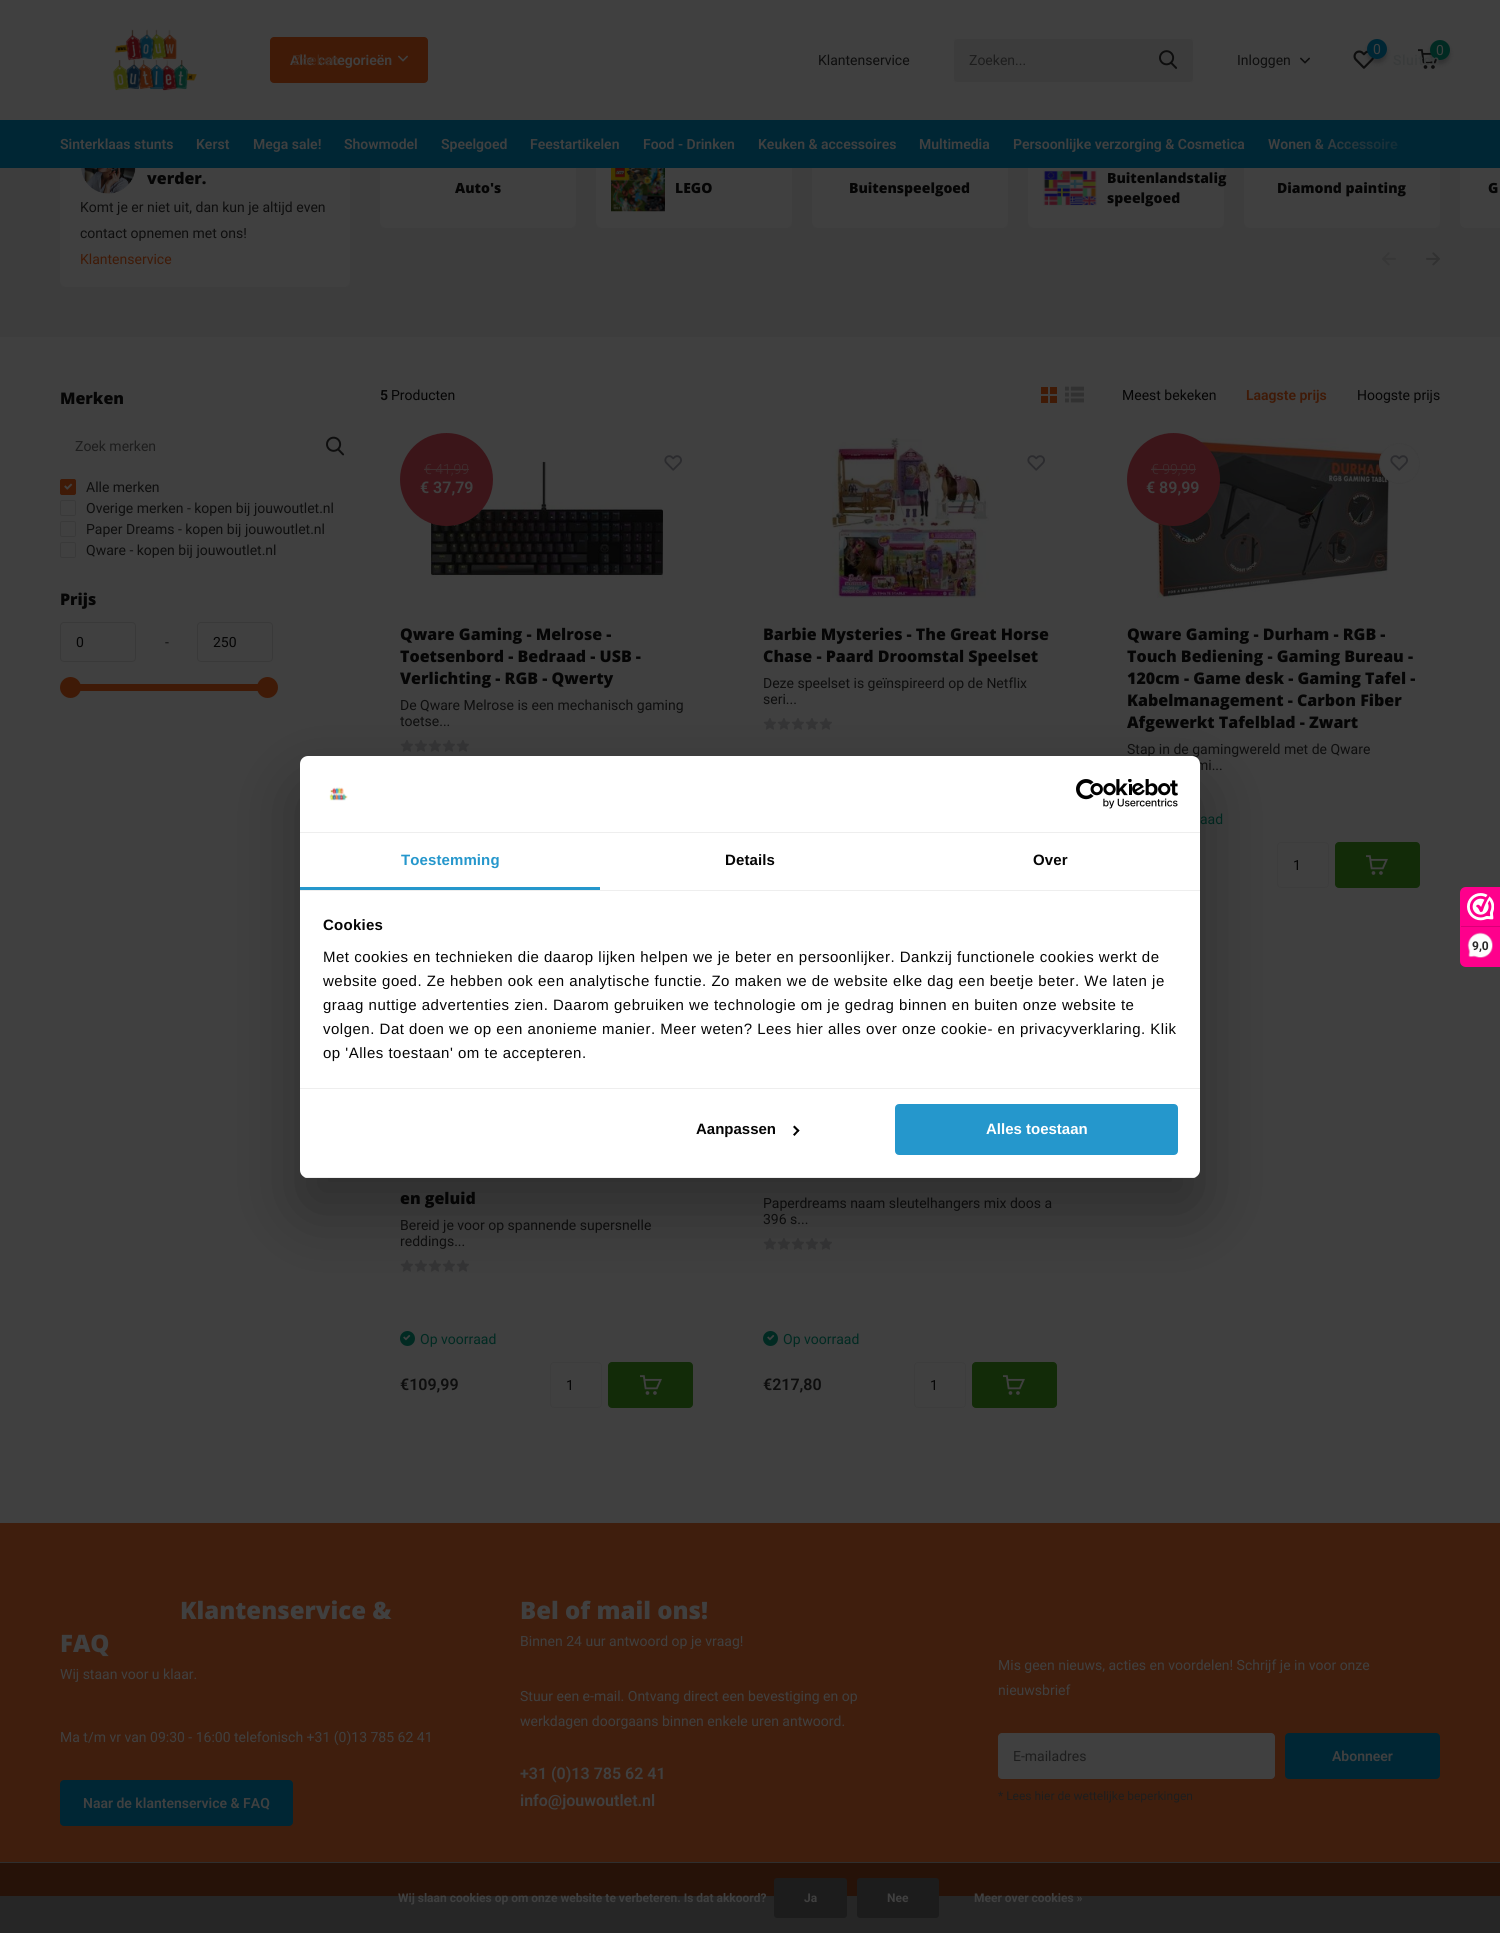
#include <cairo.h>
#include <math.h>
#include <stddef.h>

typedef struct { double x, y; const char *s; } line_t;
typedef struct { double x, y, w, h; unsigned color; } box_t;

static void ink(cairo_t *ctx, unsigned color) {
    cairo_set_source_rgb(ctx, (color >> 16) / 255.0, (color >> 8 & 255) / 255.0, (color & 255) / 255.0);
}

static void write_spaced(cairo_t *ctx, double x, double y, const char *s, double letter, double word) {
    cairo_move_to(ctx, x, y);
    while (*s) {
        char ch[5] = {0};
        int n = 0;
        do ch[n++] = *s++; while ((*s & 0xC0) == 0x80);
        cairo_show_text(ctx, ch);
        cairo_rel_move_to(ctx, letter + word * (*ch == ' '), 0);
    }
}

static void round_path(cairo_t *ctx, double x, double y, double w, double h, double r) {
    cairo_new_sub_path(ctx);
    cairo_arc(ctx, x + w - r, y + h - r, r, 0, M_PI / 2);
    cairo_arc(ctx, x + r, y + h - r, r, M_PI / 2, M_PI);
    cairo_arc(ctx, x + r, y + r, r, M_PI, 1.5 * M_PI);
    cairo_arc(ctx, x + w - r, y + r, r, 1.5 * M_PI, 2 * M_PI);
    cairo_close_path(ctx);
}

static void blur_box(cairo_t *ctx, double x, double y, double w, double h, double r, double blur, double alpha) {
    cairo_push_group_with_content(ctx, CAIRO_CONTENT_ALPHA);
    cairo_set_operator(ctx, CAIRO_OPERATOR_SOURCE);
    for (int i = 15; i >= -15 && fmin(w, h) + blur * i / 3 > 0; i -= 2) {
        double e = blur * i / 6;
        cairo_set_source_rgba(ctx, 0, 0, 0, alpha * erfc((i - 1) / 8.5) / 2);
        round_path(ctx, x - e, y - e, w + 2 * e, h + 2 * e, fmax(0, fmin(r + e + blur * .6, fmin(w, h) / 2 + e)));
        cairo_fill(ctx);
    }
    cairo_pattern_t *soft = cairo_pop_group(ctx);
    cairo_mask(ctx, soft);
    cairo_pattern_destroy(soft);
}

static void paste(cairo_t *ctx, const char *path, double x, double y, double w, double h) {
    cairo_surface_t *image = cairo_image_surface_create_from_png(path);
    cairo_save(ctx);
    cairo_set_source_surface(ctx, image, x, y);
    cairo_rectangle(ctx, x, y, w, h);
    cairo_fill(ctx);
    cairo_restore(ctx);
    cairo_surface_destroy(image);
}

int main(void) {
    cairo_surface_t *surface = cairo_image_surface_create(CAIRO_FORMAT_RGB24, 1500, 1933);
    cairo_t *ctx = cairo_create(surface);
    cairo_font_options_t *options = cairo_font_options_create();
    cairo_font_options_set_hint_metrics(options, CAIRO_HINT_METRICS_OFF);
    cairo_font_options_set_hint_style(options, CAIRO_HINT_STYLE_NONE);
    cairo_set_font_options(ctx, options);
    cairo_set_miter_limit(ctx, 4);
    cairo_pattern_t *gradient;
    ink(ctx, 0x404040);
    cairo_paint(ctx);
    paste(ctx, "media/1.png", 113, 29, 84, 62);
    ink(ctx, 0x3F1A07);
    round_path(ctx, 270, 37, 158, 46, 4);
    cairo_fill(ctx);
    cairo_select_font_face(ctx, "Roboto SemiBold", CAIRO_FONT_SLANT_NORMAL, CAIRO_FONT_WEIGHT_NORMAL);
    cairo_set_font_size(ctx, 14);
    ink(ctx, 0x404040);
    cairo_move_to(ctx, 290, 65);
    cairo_show_text(ctx, "Alle categorieën");
    paste(ctx, "media/2.png", 398, 55, 10, 7);
    paste(ctx, "media/3.png", 1353, 50, 21, 19);
    ink(ctx, 0x0A0A0C);
    blur_box(ctx, 1367, 43, 20, 20, 10, 2, 0.25);
    ink(ctx, 0x002634);
    cairo_arc(ctx, 1377, 49, 10, 0, 2 * M_PI);
    cairo_fill(ctx);
    cairo_select_font_face(ctx, "Roboto", CAIRO_FONT_SLANT_NORMAL, CAIRO_FONT_WEIGHT_NORMAL);
    ink(ctx, 0x404040);
    cairo_move_to(ctx, 1373, 54);
    cairo_show_text(ctx, "0");
    paste(ctx, "media/4.png", 1418, 49, 20, 20);
    ink(ctx, 0x0A0A0C);
    blur_box(ctx, 1430, 44, 20, 20, 10, 2, 0.25);
    ink(ctx, 0x012A22);
    cairo_arc(ctx, 1440, 50, 10, 0, 2 * M_PI);
    cairo_fill(ctx);
    ink(ctx, 0x404040);
    cairo_move_to(ctx, 1436, 55);
    cairo_show_text(ctx, "0");
    ink(ctx, 0x0E0E0E);
    cairo_move_to(ctx, 818, 65);
    cairo_show_text(ctx, "Klantenservice");
    ink(ctx, 0x3C3C3C);
    cairo_new_path(ctx);
    cairo_move_to(ctx, 957, 38);
    cairo_line_to(ctx, 1144, 38);
    cairo_line_to(ctx, 1144, 83);
    cairo_line_to(ctx, 957, 83);
    cairo_curve_to(ctx, 955, 83, 953, 81, 953, 79);
    cairo_line_to(ctx, 953, 42);
    cairo_curve_to(ctx, 953, 40, 955, 38, 957, 38);
    cairo_close_path(ctx);
    cairo_fill(ctx);
    ink(ctx, 0x404040);
    cairo_set_fill_rule(ctx, CAIRO_FILL_RULE_EVEN_ODD);
    cairo_new_path(ctx);
    cairo_move_to(ctx, 957, 38);
    cairo_line_to(ctx, 1144, 38);
    cairo_line_to(ctx, 1144, 83);
    cairo_line_to(ctx, 957, 83);
    cairo_curve_to(ctx, 955, 83, 953, 81, 953, 79);
    cairo_line_to(ctx, 953, 42);
    cairo_curve_to(ctx, 953, 40, 955, 38, 957, 38);
    cairo_close_path(ctx);
    cairo_move_to(ctx, 957, 39);
    cairo_line_to(ctx, 1144, 39);
    cairo_line_to(ctx, 1144, 82);
    cairo_line_to(ctx, 957, 82);
    cairo_curve_to(ctx, 955, 82, 954, 81, 954, 79);
    cairo_line_to(ctx, 954, 42);
    cairo_curve_to(ctx, 954, 40, 955, 39, 957, 39);
    cairo_close_path(ctx);
    cairo_fill(ctx);
    ink(ctx, 0x1D1D1D);
    cairo_move_to(ctx, 969, 65);
    cairo_show_text(ctx, "Zoeken...");
    ink(ctx, 0x3C3C3C);
    cairo_new_path(ctx);
    cairo_move_to(ctx, 1144, 38);
    cairo_line_to(ctx, 1190, 38);
    cairo_curve_to(ctx, 1192, 38, 1194, 40, 1194, 42);
    cairo_line_to(ctx, 1194, 79);
    cairo_curve_to(ctx, 1194, 81, 1192, 83, 1190, 83);
    cairo_line_to(ctx, 1144, 83);
    cairo_close_path(ctx);
    cairo_fill(ctx);
    ink(ctx, 0x404040);
    cairo_new_path(ctx);
    cairo_move_to(ctx, 1144, 38);
    cairo_line_to(ctx, 1190, 38);
    cairo_curve_to(ctx, 1192, 38, 1194, 40, 1194, 42);
    cairo_line_to(ctx, 1194, 79);
    cairo_curve_to(ctx, 1194, 81, 1192, 83, 1190, 83);
    cairo_line_to(ctx, 1144, 83);
    cairo_close_path(ctx);
    cairo_move_to(ctx, 1144, 39);
    cairo_line_to(ctx, 1190, 39);
    cairo_curve_to(ctx, 1192, 39, 1193, 40, 1193, 42);
    cairo_line_to(ctx, 1193, 79);
    cairo_curve_to(ctx, 1193, 81, 1192, 82, 1190, 82);
    cairo_line_to(ctx, 1144, 82);
    cairo_close_path(ctx);
    cairo_fill(ctx);
    paste(ctx, "media/5.png", 1159, 50, 19, 19);
    ink(ctx, 0x0E0E0E);
    cairo_move_to(ctx, 1237, 65);
    cairo_show_text(ctx, "Inloggen");
    paste(ctx, "media/6.png", 1300, 57, 10, 7);
    ink(ctx, 0x40291D);
    cairo_move_to(ctx, 293, 65);
    cairo_show_text(ctx, "Zoeken");
    cairo_select_font_face(ctx, "Roboto Medium", CAIRO_FONT_SLANT_NORMAL, CAIRO_FONT_WEIGHT_NORMAL);
    ink(ctx, 0x393B3B);
    write_spaced(ctx, 1393, 65, "Sluiten", 0.5, 0);
    ink(ctx, 0x3D3D3D);
    cairo_rectangle(ctx, 0, 168, 1500, 169);
    cairo_fill(ctx);
    ink(ctx, 0x404040);
    round_path(ctx, 60, 118, 290, 169, 6);
    cairo_fill(ctx);
    round_path(ctx, 380, 148, 196, 80, 6);
    cairo_fill(ctx);
    round_path(ctx, 596, 148, 196, 80, 6);
    cairo_fill(ctx);
    round_path(ctx, 812, 148, 196, 80, 6);
    cairo_fill(ctx);
    round_path(ctx, 1028, 148, 196, 80, 6);
    cairo_fill(ctx);
    round_path(ctx, 1244, 148, 196, 80, 6);
    cairo_fill(ctx);
    cairo_new_path(ctx);
    cairo_move_to(ctx, 1466, 148);
    cairo_line_to(ctx, 1500, 148);
    cairo_line_to(ctx, 1500, 228);
    cairo_line_to(ctx, 1466, 228);
    cairo_curve_to(ctx, 1462.5, 228, 1460, 225.5, 1460, 222);
    cairo_line_to(ctx, 1460, 154);
    cairo_curve_to(ctx, 1460, 150.5, 1462.5, 148, 1466, 148);
    cairo_close_path(ctx);
    cairo_fill(ctx);
    ink(ctx, 0x002634);
    cairo_rectangle(ctx, 0, 120, 1500, 48);
    cairo_fill(ctx);
    cairo_select_font_face(ctx, "Roboto SemiBold", CAIRO_FONT_SLANT_NORMAL, CAIRO_FONT_WEIGHT_NORMAL);
    ink(ctx, 0x404040);
    {
        static const line_t items[] = {
            {60, 149, "Sinterklaas stunts"},
            {196, 149, "Kerst"},
            {253, 149, "Mega sale!"},
            {344, 149, "Showmodel"},
            {441, 149, "Speelgoed"},
            {530, 149, "Feestartikelen"},
            {643, 149, "Food - Drinken"},
            {758, 149, "Keuken & accessoires"},
            {919, 149, "Multimedia"},
            {1013, 149, "Persoonlijke verzorging & Cosmetica"},
            {1268, 149, "Wonen & Accessoire"},
        };
        for (size_t i = 0; i < sizeof items / sizeof *items; i++) {
            cairo_move_to(ctx, items[i].x, items[i].y);
            cairo_show_text(ctx, items[i].s);
        }
    }
    gradient = cairo_pattern_create_linear(1440, 144, 1302, 144);
    cairo_pattern_add_color_stop_rgba(gradient, 0, 0, 0.149, 0.204, 1);
    cairo_pattern_add_color_stop_rgba(gradient, 1, 0, 0.149, 0.204, 0);
    cairo_set_source(ctx, gradient);
    cairo_pattern_destroy(gradient);
    cairo_rectangle(ctx, 1308, 138, 89, 12);
    cairo_fill(ctx);
    paste(ctx, "media/7.png", 81, 168, 55, 26);
    cairo_select_font_face(ctx, "Open Sans ExtraBold", CAIRO_FONT_SLANT_NORMAL, CAIRO_FONT_WEIGHT_NORMAL);
    cairo_set_font_size(ctx, 16);
    ink(ctx, 0x050505);
    cairo_move_to(ctx, 147, 184);
    cairo_show_text(ctx, "verder.");
    cairo_select_font_face(ctx, "Roboto", CAIRO_FONT_SLANT_NORMAL, CAIRO_FONT_WEIGHT_NORMAL);
    cairo_set_font_size(ctx, 14);
    ink(ctx, 0x0E0E0E);
    cairo_move_to(ctx, 80, 212);
    cairo_show_text(ctx, "Komt je er niet uit, dan kun je altijd even");
    cairo_move_to(ctx, 80, 238);
    cairo_show_text(ctx, "contact opnemen met ons!");
    ink(ctx, 0x3F1A07);
    cairo_move_to(ctx, 80, 264);
    cairo_show_text(ctx, "Klantenservice");
    cairo_select_font_face(ctx, "Open Sans ExtraBold", CAIRO_FONT_SLANT_NORMAL, CAIRO_FONT_WEIGHT_NORMAL);
    ink(ctx, 0x050505);
    cairo_move_to(ctx, 455, 193);
    cairo_show_text(ctx, "Auto's");
    paste(ctx, "media/8.png", 611, 168, 54, 44);
    cairo_move_to(ctx, 675, 193);
    cairo_show_text(ctx, "LEGO");
    cairo_move_to(ctx, 849, 193);
    cairo_show_text(ctx, "Buitenspeelgoed");
    paste(ctx, "media/9.png", 1043, 170, 54, 36);
    {
        static const line_t items[] = {
            {1107, 183, "Buitenlandstalig"},
            {1107, 203, "speelgoed"},
            {1277, 193, "Diamond painting"},
            {1488, 193, "G"},
        };
        for (size_t i = 0; i < sizeof items / sizeof *items; i++) {
            cairo_move_to(ctx, items[i].x, items[i].y);
            cairo_show_text(ctx, items[i].s);
        }
    }
    paste(ctx, "media/10.png", 1382, 252, 14, 14);
    paste(ctx, "media/11.png", 1426, 252, 14, 14);
    cairo_set_font_size(ctx, 16);
    cairo_move_to(ctx, 60, 404);
    cairo_show_text(ctx, "Merken");
    cairo_select_font_face(ctx, "Roboto", CAIRO_FONT_SLANT_NORMAL, CAIRO_FONT_WEIGHT_NORMAL);
    cairo_set_font_size(ctx, 14);
    ink(ctx, 0x1D1D1D);
    cairo_move_to(ctx, 75, 451);
    cairo_show_text(ctx, "Zoek merken");
    paste(ctx, "media/12.png", 326, 436, 19, 20);
    ink(ctx, 0x3F1A07);
    round_path(ctx, 60.5, 479.5, 15, 15, 1.5);
    cairo_fill_preserve(ctx);
    cairo_set_line_width(ctx, 1);
    cairo_stroke(ctx);
    ink(ctx, 0x0E0E0E);
    cairo_move_to(ctx, 86, 492);
    cairo_show_text(ctx, "Alle merken");
    paste(ctx, "media/13.png", 64, 483, 9, 7);
    round_path(ctx, 60.5, 500.5, 15, 15, 1.5);
    ink(ctx, 0x393939);
    cairo_stroke(ctx);
    ink(ctx, 0x0E0E0E);
    cairo_move_to(ctx, 86, 513);
    cairo_show_text(ctx, "Overige merken - kopen bij jouwoutlet.nl");
    round_path(ctx, 60.5, 521.5, 15, 15, 1.5);
    ink(ctx, 0x393939);
    cairo_stroke(ctx);
    ink(ctx, 0x0E0E0E);
    cairo_move_to(ctx, 86, 534);
    cairo_show_text(ctx, "Paper Dreams - kopen bij jouwoutlet.nl");
    round_path(ctx, 60.5, 542.5, 15, 15, 1.5);
    ink(ctx, 0x393939);
    cairo_stroke(ctx);
    ink(ctx, 0x0E0E0E);
    cairo_move_to(ctx, 86, 555);
    cairo_show_text(ctx, "Qware - kopen bij jouwoutlet.nl");
    cairo_select_font_face(ctx, "Open Sans ExtraBold", CAIRO_FONT_SLANT_NORMAL, CAIRO_FONT_WEIGHT_NORMAL);
    cairo_set_font_size(ctx, 16);
    ink(ctx, 0x050505);
    cairo_move_to(ctx, 60, 605);
    cairo_show_text(ctx, "Prijs");
    round_path(ctx, 60.5, 622.5, 75, 39, 3.5);
    ink(ctx, 0x393939);
    cairo_stroke(ctx);
    cairo_select_font_face(ctx, "Roboto", CAIRO_FONT_SLANT_NORMAL, CAIRO_FONT_WEIGHT_NORMAL);
    cairo_set_font_size(ctx, 14);
    ink(ctx, 0x050505);
    cairo_move_to(ctx, 76, 647);
    cairo_show_text(ctx, "0");
    ink(ctx, 0x0E0E0E);
    cairo_move_to(ctx, 165, 647);
    cairo_show_text(ctx, "-");
    round_path(ctx, 197.5, 622.5, 75, 39, 3.5);
    ink(ctx, 0x393939);
    cairo_stroke(ctx);
    ink(ctx, 0x050505);
    cairo_move_to(ctx, 213, 647);
    cairo_show_text(ctx, "250");
    ink(ctx, 0x3F1A07);
    cairo_rectangle(ctx, 80, 684, 185, 7);
    cairo_fill(ctx);
    cairo_arc(ctx, 70.5, 687.5, 10.5, 0, 2 * M_PI);
    cairo_fill(ctx);
    cairo_arc(ctx, 267.5, 687.5, 10.5, 0, 2 * M_PI);
    cairo_fill(ctx);
    cairo_select_font_face(ctx, "Roboto SemiBold", CAIRO_FONT_SLANT_NORMAL, CAIRO_FONT_WEIGHT_NORMAL);
    ink(ctx, 0x050505);
    cairo_move_to(ctx, 380, 400);
    cairo_show_text(ctx, "5");
    cairo_select_font_face(ctx, "Roboto", CAIRO_FONT_SLANT_NORMAL, CAIRO_FONT_WEIGHT_NORMAL);
    cairo_move_to(ctx, 391, 400);
    cairo_show_text(ctx, "Producten");
    paste(ctx, "media/14.png", 1041, 387, 16, 16);
    paste(ctx, "media/15.png", 1065, 386, 19, 17);
    cairo_move_to(ctx, 1122, 400);
    cairo_show_text(ctx, "Meest bekeken");
    cairo_select_font_face(ctx, "Roboto SemiBold", CAIRO_FONT_SLANT_NORMAL, CAIRO_FONT_WEIGHT_NORMAL);
    ink(ctx, 0x3F1A07);
    cairo_move_to(ctx, 1246, 400);
    cairo_show_text(ctx, "Laagste prijs");
    cairo_select_font_face(ctx, "Roboto", CAIRO_FONT_SLANT_NORMAL, CAIRO_FONT_WEIGHT_NORMAL);
    ink(ctx, 0x050505);
    cairo_move_to(ctx, 1357, 400);
    cairo_show_text(ctx, "Hoogste prijs");
    paste(ctx, "media/16.png", 431, 461, 232, 118);
    ink(ctx, 0x3B1519);
    cairo_arc(ctx, 446.5, 479.5, 46.5, 0, 2 * M_PI);
    cairo_fill(ctx);
    cairo_select_font_face(ctx, "Roboto Light", CAIRO_FONT_SLANT_NORMAL, CAIRO_FONT_WEIGHT_NORMAL);
    ink(ctx, 0x3E2F30);
    cairo_move_to(ctx, 424, 474);
    cairo_show_text(ctx, "€ 41,99");
    cairo_rectangle(ctx, 424, 469, 45, 1);
    cairo_fill(ctx);
    cairo_select_font_face(ctx, "Roboto SemiBold", CAIRO_FONT_SLANT_NORMAL, CAIRO_FONT_WEIGHT_NORMAL);
    cairo_set_font_size(ctx, 16);
    ink(ctx, 0x404040);
    cairo_move_to(ctx, 420, 493);
    cairo_show_text(ctx, "€ 37,79");
    paste(ctx, "media/17.png", 664, 455, 18, 16);
    cairo_select_font_face(ctx, "Open Sans ExtraBold", CAIRO_FONT_SLANT_NORMAL, CAIRO_FONT_WEIGHT_NORMAL);
    ink(ctx, 0x050505);
    {
        static const line_t items[] = {
            {400, 640, "Qware Gaming - Melrose -"},
            {400, 662, "Toetsenbord - Bedraad - USB -"},
            {400, 684, "Verlichting - RGB - Qwerty"},
        };
        for (size_t i = 0; i < sizeof items / sizeof *items; i++) {
            cairo_move_to(ctx, items[i].x, items[i].y);
            cairo_show_text(ctx, items[i].s);
        }
    }
    cairo_select_font_face(ctx, "Roboto", CAIRO_FONT_SLANT_NORMAL, CAIRO_FONT_WEIGHT_NORMAL);
    cairo_set_font_size(ctx, 14);
    ink(ctx, 0x0E0E0E);
    cairo_move_to(ctx, 400, 710);
    cairo_show_text(ctx, "De Qware Melrose is een mechanisch gaming");
    cairo_move_to(ctx, 400, 726);
    cairo_show_text(ctx, "toetse...");
    paste(ctx, "media/18.png", 400, 740, 13, 12);
    paste(ctx, "media/18.png", 414, 740, 13, 12);
    paste(ctx, "media/18.png", 428, 740, 13, 12);
    paste(ctx, "media/18.png", 442, 740, 13, 12);
    paste(ctx, "media/18.png", 456, 740, 13, 12);
    paste(ctx, "media/19.png", 831, 438, 158, 160);
    paste(ctx, "media/17.png", 1027, 455, 18, 16);
    cairo_select_font_face(ctx, "Open Sans ExtraBold", CAIRO_FONT_SLANT_NORMAL, CAIRO_FONT_WEIGHT_NORMAL);
    cairo_set_font_size(ctx, 16);
    ink(ctx, 0x050505);
    cairo_move_to(ctx, 763, 640);
    cairo_show_text(ctx, "Barbie Mysteries - The Great Horse");
    cairo_move_to(ctx, 763, 662);
    cairo_show_text(ctx, "Chase - Paard Droomstal Speelset");
    cairo_select_font_face(ctx, "Roboto", CAIRO_FONT_SLANT_NORMAL, CAIRO_FONT_WEIGHT_NORMAL);
    cairo_set_font_size(ctx, 14);
    ink(ctx, 0x0E0E0E);
    cairo_move_to(ctx, 763, 688);
    cairo_show_text(ctx, "Deze speelset is geïnspireerd op de Netflix");
    cairo_move_to(ctx, 763, 704);
    cairo_show_text(ctx, "seri...");
    paste(ctx, "media/18.png", 763, 718, 13, 12);
    paste(ctx, "media/18.png", 777, 718, 13, 12);
    paste(ctx, "media/18.png", 791, 718, 13, 12);
    paste(ctx, "media/18.png", 805, 718, 13, 12);
    paste(ctx, "media/18.png", 819, 718, 13, 12);
    paste(ctx, "media/20.png", 1157, 438, 232, 160);
    ink(ctx, 0x3B1519);
    cairo_arc(ctx, 1173.5, 479.5, 46.5, 0, 2 * M_PI);
    cairo_fill(ctx);
    cairo_select_font_face(ctx, "Roboto Light", CAIRO_FONT_SLANT_NORMAL, CAIRO_FONT_WEIGHT_NORMAL);
    ink(ctx, 0x3E2F30);
    cairo_move_to(ctx, 1151, 474);
    cairo_show_text(ctx, "€ 99,99");
    cairo_rectangle(ctx, 1151, 469, 45, 1);
    cairo_fill(ctx);
    cairo_select_font_face(ctx, "Roboto SemiBold", CAIRO_FONT_SLANT_NORMAL, CAIRO_FONT_WEIGHT_NORMAL);
    cairo_set_font_size(ctx, 16);
    ink(ctx, 0x404040);
    cairo_move_to(ctx, 1146, 493);
    cairo_show_text(ctx, "€ 89,99");
    cairo_new_path(ctx);
    cairo_arc(ctx, 1399.5, 463.5, 20, 0, 2 * M_PI);
    cairo_fill_preserve(ctx);
    ink(ctx, 0x3E3E3E);
    cairo_stroke(ctx);
    paste(ctx, "media/17.png", 1390, 455, 18, 16);
    cairo_select_font_face(ctx, "Open Sans ExtraBold", CAIRO_FONT_SLANT_NORMAL, CAIRO_FONT_WEIGHT_NORMAL);
    ink(ctx, 0x050505);
    {
        static const line_t items[] = {
            {1127, 640, "Qware Gaming - Durham - RGB -"},
            {1127, 662, "Touch Bediening - Gaming Bureau -"},
            {1127, 684, "120cm - Game desk - Gaming Tafel -"},
            {1127, 706, "Kabelmanagement - Carbon Fiber"},
            {1127, 728, "Afgewerkt Tafelblad - Zwart"},
        };
        for (size_t i = 0; i < sizeof items / sizeof *items; i++) {
            cairo_move_to(ctx, items[i].x, items[i].y);
            cairo_show_text(ctx, items[i].s);
        }
    }
    cairo_select_font_face(ctx, "Roboto", CAIRO_FONT_SLANT_NORMAL, CAIRO_FONT_WEIGHT_NORMAL);
    cairo_set_font_size(ctx, 14);
    ink(ctx, 0x0E0E0E);
    cairo_move_to(ctx, 1127, 754);
    cairo_show_text(ctx, "Stap in de gamingwereld met de Qware");
    cairo_move_to(ctx, 1196, 770);
    cairo_show_text(ctx, "mi...");
    ink(ctx, 0x012A22);
    cairo_move_to(ctx, 1200, 824);
    cairo_show_text(ctx, "aad");
    round_path(ctx, 1277.5, 842.5, 51, 45, 3.5);
    ink(ctx, 0x3D3D3D);
    cairo_stroke(ctx);
    ink(ctx, 0x050505);
    cairo_move_to(ctx, 1293, 870);
    cairo_show_text(ctx, "1");
    ink(ctx, 0x122B08);
    round_path(ctx, 1335, 842, 85, 46, 4);
    cairo_fill(ctx);
    paste(ctx, "media/21.png", 1366, 855, 22, 20);
    cairo_select_font_face(ctx, "Open Sans ExtraBold", CAIRO_FONT_SLANT_NORMAL, CAIRO_FONT_WEIGHT_NORMAL);
    cairo_set_font_size(ctx, 16);
    ink(ctx, 0x050505);
    cairo_move_to(ctx, 400, 1204);
    cairo_show_text(ctx, "en geluid");
    cairo_select_font_face(ctx, "Roboto", CAIRO_FONT_SLANT_NORMAL, CAIRO_FONT_WEIGHT_NORMAL);
    cairo_set_font_size(ctx, 14);
    ink(ctx, 0x0E0E0E);
    cairo_move_to(ctx, 400, 1230);
    cairo_show_text(ctx, "Bereid je voor op spannende supersnelle");
    cairo_move_to(ctx, 400, 1246);
    cairo_show_text(ctx, "reddings...");
    paste(ctx, "media/18.png", 400, 1260, 13, 12);
    paste(ctx, "media/18.png", 414, 1260, 13, 12);
    paste(ctx, "media/18.png", 428, 1260, 13, 12);
    paste(ctx, "media/18.png", 442, 1260, 13, 12);
    paste(ctx, "media/18.png", 456, 1260, 13, 12);
    ink(ctx, 0x012A22);
    cairo_arc(ctx, 407.5, 1338.5, 7.5, 0, 2 * M_PI);
    cairo_fill(ctx);
    paste(ctx, "media/22.png", 403, 1334, 8, 7);
    cairo_move_to(ctx, 420, 1344);
    cairo_show_text(ctx, "Op voorraad");
    cairo_select_font_face(ctx, "Roboto SemiBold", CAIRO_FONT_SLANT_NORMAL, CAIRO_FONT_WEIGHT_NORMAL);
    cairo_set_font_size(ctx, 16);
    ink(ctx, 0x0E0E0E);
    cairo_move_to(ctx, 400, 1390);
    cairo_show_text(ctx, "€109,99");
    round_path(ctx, 550.5, 1362.5, 51, 45, 3.5);
    ink(ctx, 0x3D3D3D);
    cairo_stroke(ctx);
    cairo_select_font_face(ctx, "Roboto", CAIRO_FONT_SLANT_NORMAL, CAIRO_FONT_WEIGHT_NORMAL);
    cairo_set_font_size(ctx, 14);
    ink(ctx, 0x050505);
    cairo_move_to(ctx, 566, 1390);
    cairo_show_text(ctx, "1");
    ink(ctx, 0x122B08);
    round_path(ctx, 608, 1362, 85, 46, 4);
    cairo_fill(ctx);
    paste(ctx, "media/21.png", 640, 1375, 22, 20);
    ink(ctx, 0x0E0E0E);
    cairo_move_to(ctx, 763, 1208);
    cairo_show_text(ctx, "Paperdreams naam sleutelhangers mix doos a");
    cairo_move_to(ctx, 763, 1224);
    cairo_show_text(ctx, "396 s...");
    paste(ctx, "media/18.png", 763, 1238, 13, 12);
    paste(ctx, "media/18.png", 777, 1238, 13, 12);
    paste(ctx, "media/18.png", 791, 1238, 13, 12);
    paste(ctx, "media/18.png", 805, 1238, 13, 12);
    paste(ctx, "media/18.png", 819, 1238, 13, 12);
    ink(ctx, 0x012A22);
    cairo_arc(ctx, 770.5, 1338.5, 7.5, 0, 2 * M_PI);
    cairo_fill(ctx);
    paste(ctx, "media/22.png", 767, 1334, 8, 7);
    cairo_move_to(ctx, 783, 1344);
    cairo_show_text(ctx, "Op voorraad");
    cairo_select_font_face(ctx, "Roboto SemiBold", CAIRO_FONT_SLANT_NORMAL, CAIRO_FONT_WEIGHT_NORMAL);
    cairo_set_font_size(ctx, 16);
    ink(ctx, 0x0E0E0E);
    cairo_move_to(ctx, 763, 1390);
    cairo_show_text(ctx, "€217,80");
    round_path(ctx, 914.5, 1362.5, 51, 45, 3.5);
    ink(ctx, 0x3D3D3D);
    cairo_stroke(ctx);
    cairo_select_font_face(ctx, "Roboto", CAIRO_FONT_SLANT_NORMAL, CAIRO_FONT_WEIGHT_NORMAL);
    cairo_set_font_size(ctx, 14);
    ink(ctx, 0x050505);
    cairo_move_to(ctx, 930, 1390);
    cairo_show_text(ctx, "1");
    ink(ctx, 0x122B08);
    round_path(ctx, 972, 1362, 85, 46, 4);
    cairo_fill(ctx);
    paste(ctx, "media/21.png", 1003, 1375, 22, 20);
    ink(ctx, 0x000000);
    blur_box(ctx, 300, 788, 900, 422, 8, 34, 0.3);
    ink(ctx, 0xFFFFFF);
    round_path(ctx, 300, 756, 900, 422, 8);
    cairo_fill(ctx);
    ink(ctx, 0xEEEEEE);
    cairo_rectangle(ctx, 300, 832, 900, 1);
    cairo_fill(ctx);
    paste(ctx, "media/23.png", 329, 787, 19, 14);
    paste(ctx, "media/24.png", 1076, 779, 102, 30);
    cairo_rectangle(ctx, 300, 890, 900, 1);
    cairo_fill(ctx);
    ink(ctx, 0x2597CC);
    cairo_rectangle(ctx, 300, 887, 300, 3);
    cairo_fill(ctx);
    cairo_select_font_face(ctx, "Liberation Sans", CAIRO_FONT_SLANT_NORMAL, CAIRO_FONT_WEIGHT_BOLD);
    cairo_set_font_size(ctx, 15);
    write_spaced(ctx, 401, 865, "Toestemming", 0.1, 0);
    ink(ctx, 0x050505);
    write_spaced(ctx, 725, 865, "Details", 0.1, 0);
    write_spaced(ctx, 1033, 865, "Over", 0.1, 0);
    ink(ctx, 0xEEEEEE);
    cairo_rectangle(ctx, 300, 1088, 900, 1);
    cairo_fill(ctx);
    ink(ctx, 0x050505);
    write_spaced(ctx, 323, 930, "Cookies", 0.25, 0);
    cairo_select_font_face(ctx, "Liberation Sans", CAIRO_FONT_SLANT_NORMAL, CAIRO_FONT_WEIGHT_NORMAL);
    {
        static const line_t items[] = {
            {323, 962, "Met cookies en technieken die daarop lijken helpen we je beter en persoonlijker. Dankzij functionele cookies werkt de"},
            {323, 986, "website goed. Ze hebben ook een analytische functie. Zo maken we de website elke dag een beetje beter. We laten je"},
            {323, 1010, "graag nuttige advertenties zien. Daarom gebruiken we technologie om je gedrag binnen en buiten onze website te"},
            {323, 1034, "volgen. Dat doen we op een anonieme manier. Meer weten? Lees hier alles over onze cookie- en privacyverklaring. Klik"},
            {323, 1058, "op 'Alles toestaan' om te accepteren."},
        };
        for (size_t i = 0; i < sizeof items / sizeof *items; i++) {
            write_spaced(ctx, items[i].x, items[i].y, items[i].s, 0.5, 0);
        }
    }
    cairo_save(ctx);
    cairo_set_fill_rule(ctx, CAIRO_FILL_RULE_WINDING);
    round_path(ctx, 300, 756, 900, 422, 8);
    cairo_clip(ctx);
    ink(ctx, 0xEEEEEE);
    cairo_rectangle(ctx, 300, 1177, 900, 1);
    cairo_fill(ctx);
    cairo_restore(ctx);
    cairo_select_font_face(ctx, "Liberation Sans", CAIRO_FONT_SLANT_NORMAL, CAIRO_FONT_WEIGHT_BOLD);
    cairo_move_to(ctx, 696, 1134);
    cairo_show_text(ctx, "Aanpassen");
    ink(ctx, 0x000000);
    cairo_set_fill_rule(ctx, CAIRO_FILL_RULE_WINDING);
    cairo_new_path(ctx);
    cairo_move_to(ctx, 794.5, 1125.5);
    cairo_line_to(ctx, 799.5, 1130.5);
    cairo_line_to(ctx, 798, 1132);
    cairo_line_to(ctx, 793, 1127);
    cairo_close_path(ctx);
    cairo_fill(ctx);
    cairo_new_path(ctx);
    cairo_move_to(ctx, 798, 1129.5);
    cairo_line_to(ctx, 799.5, 1130.5);
    cairo_line_to(ctx, 794.5, 1136);
    cairo_line_to(ctx, 793, 1134.5);
    cairo_close_path(ctx);
    cairo_fill(ctx);
    ink(ctx, 0x2597CC);
    round_path(ctx, 896, 1105, 281, 49, 3);
    cairo_fill_preserve(ctx);
    cairo_set_line_width(ctx, 2);
    cairo_stroke(ctx);
    ink(ctx, 0xFFFFFF);
    cairo_move_to(ctx, 986, 1134);
    cairo_show_text(ctx, "Alles toestaan");
    ink(ctx, 0xFE008C);
    cairo_new_path(ctx);
    cairo_move_to(ctx, 1466, 887);
    cairo_line_to(ctx, 1500, 887);
    cairo_line_to(ctx, 1500, 967);
    cairo_line_to(ctx, 1466, 967);
    cairo_curve_to(ctx, 1462.5, 967, 1460, 964.5, 1460, 961);
    cairo_line_to(ctx, 1460, 893);
    cairo_curve_to(ctx, 1460, 889.5, 1462.5, 887, 1466, 887);
    cairo_close_path(ctx);
    cairo_fill(ctx);
    paste(ctx, "media/25.png", 1467, 893, 27, 28);
    ink(ctx, 0xD80077);
    cairo_rectangle(ctx, 1461, 926, 39, 1);
    cairo_fill(ctx);
    paste(ctx, "media/26.png", 1467, 932, 26, 26);
    cairo_select_font_face(ctx, "Roboto", CAIRO_FONT_SLANT_NORMAL, CAIRO_FONT_WEIGHT_BOLD);
    cairo_set_font_size(ctx, 12);
    ink(ctx, 0x272626);
    cairo_move_to(ctx, 1472, 950);
    cairo_show_text(ctx, "9,0");
    {
        static const box_t items[] = {
            {0, 1896, 1500, 37, 0x262626},
            {0, 1523, 1500, 339, 0x3F1E0D},
            {0, 1863, 1500, 33, 0x261208},
        };
        for (size_t i = 0; i < sizeof items / sizeof *items; i++) {
            ink(ctx, items[i].color);
            cairo_rectangle(ctx, items[i].x, items[i].y, items[i].w, items[i].h);
            cairo_fill(ctx);
        }
    }
    cairo_select_font_face(ctx, "Open Sans ExtraBold", CAIRO_FONT_SLANT_NORMAL, CAIRO_FONT_WEIGHT_NORMAL);
    cairo_set_font_size(ctx, 24);
    ink(ctx, 0x404040);
    cairo_move_to(ctx, 180, 1619);
    cairo_show_text(ctx, "Klantenservice &");
    cairo_move_to(ctx, 60, 1652);
    cairo_show_text(ctx, "FAQ");
    cairo_select_font_face(ctx, "Roboto", CAIRO_FONT_SLANT_NORMAL, CAIRO_FONT_WEIGHT_NORMAL);
    cairo_set_font_size(ctx, 14);
    cairo_move_to(ctx, 60, 1679);
    cairo_show_text(ctx, "Wij staan voor u klaar.");
    cairo_move_to(ctx, 60, 1742);
    cairo_show_text(ctx, "Ma t/m vr van 09:30 - 16:00 telefonisch +31 (0)13 785 62 41");
    ink(ctx, 0x002634);
    round_path(ctx, 60, 1780, 233, 46, 4);
    cairo_fill(ctx);
    cairo_select_font_face(ctx, "Roboto SemiBold", CAIRO_FONT_SLANT_NORMAL, CAIRO_FONT_WEIGHT_NORMAL);
    ink(ctx, 0x404040);
    cairo_move_to(ctx, 83, 1808);
    cairo_show_text(ctx, "Naar de klantenservice & FAQ");
    cairo_select_font_face(ctx, "Open Sans ExtraBold", CAIRO_FONT_SLANT_NORMAL, CAIRO_FONT_WEIGHT_NORMAL);
    cairo_set_font_size(ctx, 24);
    cairo_move_to(ctx, 520, 1619);
    cairo_show_text(ctx, "Bel of mail ons!");
    cairo_select_font_face(ctx, "Roboto", CAIRO_FONT_SLANT_NORMAL, CAIRO_FONT_WEIGHT_NORMAL);
    cairo_set_font_size(ctx, 14);
    {
        static const line_t items[] = {
            {520, 1646, "Binnen 24 uur antwoord op je vraag!"},
            {520, 1701, "Stuur een e-mail. Ontvang direct een bevestiging en op"},
            {520, 1726, "werkdagen doorgaans binnen enkele uren antwoord."},
        };
        for (size_t i = 0; i < sizeof items / sizeof *items; i++) {
            cairo_move_to(ctx, items[i].x, items[i].y);
            cairo_show_text(ctx, items[i].s);
        }
    }
    cairo_select_font_face(ctx, "Roboto SemiBold", CAIRO_FONT_SLANT_NORMAL, CAIRO_FONT_WEIGHT_NORMAL);
    cairo_set_font_size(ctx, 16);
    cairo_move_to(ctx, 520, 1779);
    cairo_show_text(ctx, "+31 (0)13 785 62 41");
    cairo_move_to(ctx, 520, 1806);
    cairo_show_text(ctx, "info@jouwoutlet.nl");
    cairo_select_font_face(ctx, "Roboto", CAIRO_FONT_SLANT_NORMAL, CAIRO_FONT_WEIGHT_NORMAL);
    cairo_set_font_size(ctx, 14);
    cairo_move_to(ctx, 998, 1670);
    cairo_show_text(ctx, "Mis geen nieuws, acties en voordelen! Schrijf je in voor onze");
    cairo_move_to(ctx, 998, 1695);
    cairo_show_text(ctx, "nieuwsbrief");
    round_path(ctx, 998, 1733, 277, 46, 4);
    cairo_fill(ctx);
    ink(ctx, 0x1D1D1D);
    cairo_move_to(ctx, 1013, 1761);
    cairo_show_text(ctx, "E-mailadres");
    ink(ctx, 0x002634);
    round_path(ctx, 1285, 1733, 155, 46, 4);
    cairo_fill(ctx);
    cairo_select_font_face(ctx, "Roboto SemiBold", CAIRO_FONT_SLANT_NORMAL, CAIRO_FONT_WEIGHT_NORMAL);
    ink(ctx, 0x404040);
    cairo_move_to(ctx, 1332, 1761);
    cairo_show_text(ctx, "Abonneer");
    cairo_select_font_face(ctx, "Roboto", CAIRO_FONT_SLANT_NORMAL, CAIRO_FONT_WEIGHT_NORMAL);
    cairo_set_font_size(ctx, 12);
    ink(ctx, 0x1D1D1D);
    cairo_move_to(ctx, 998, 1800);
    cairo_show_text(ctx, "* Lees hier de wettelijke beperkingen");
    ink(ctx, 0x2F2F2F);
    cairo_rectangle(ctx, 0, 1862, 1500, 1);
    cairo_fill(ctx);
    cairo_select_font_face(ctx, "Roboto", CAIRO_FONT_SLANT_NORMAL, CAIRO_FONT_WEIGHT_BOLD);
    ink(ctx, 0x404040);
    cairo_move_to(ctx, 398, 1902);
    cairo_show_text(ctx, "Wij slaan cookies op om onze website te verbeteren. Is dat akkoord?");
    ink(ctx, 0x1C1C1C);
    round_path(ctx, 774, 1878, 73, 40, 3);
    cairo_fill(ctx);
    ink(ctx, 0x404040);
    cairo_move_to(ctx, 804, 1902);
    cairo_show_text(ctx, "Ja");
    ink(ctx, 0x1C1C1C);
    round_path(ctx, 857, 1878, 82, 40, 3);
    cairo_fill(ctx);
    ink(ctx, 0x404040);
    cairo_move_to(ctx, 887, 1902);
    cairo_show_text(ctx, "Nee");
    cairo_move_to(ctx, 974, 1902);
    cairo_show_text(ctx, "Meer over cookies »");
    cairo_surface_write_to_png(surface, "image.png");
    cairo_font_options_destroy(options);
    cairo_destroy(ctx);
    cairo_surface_destroy(surface);
    return 0;
}
